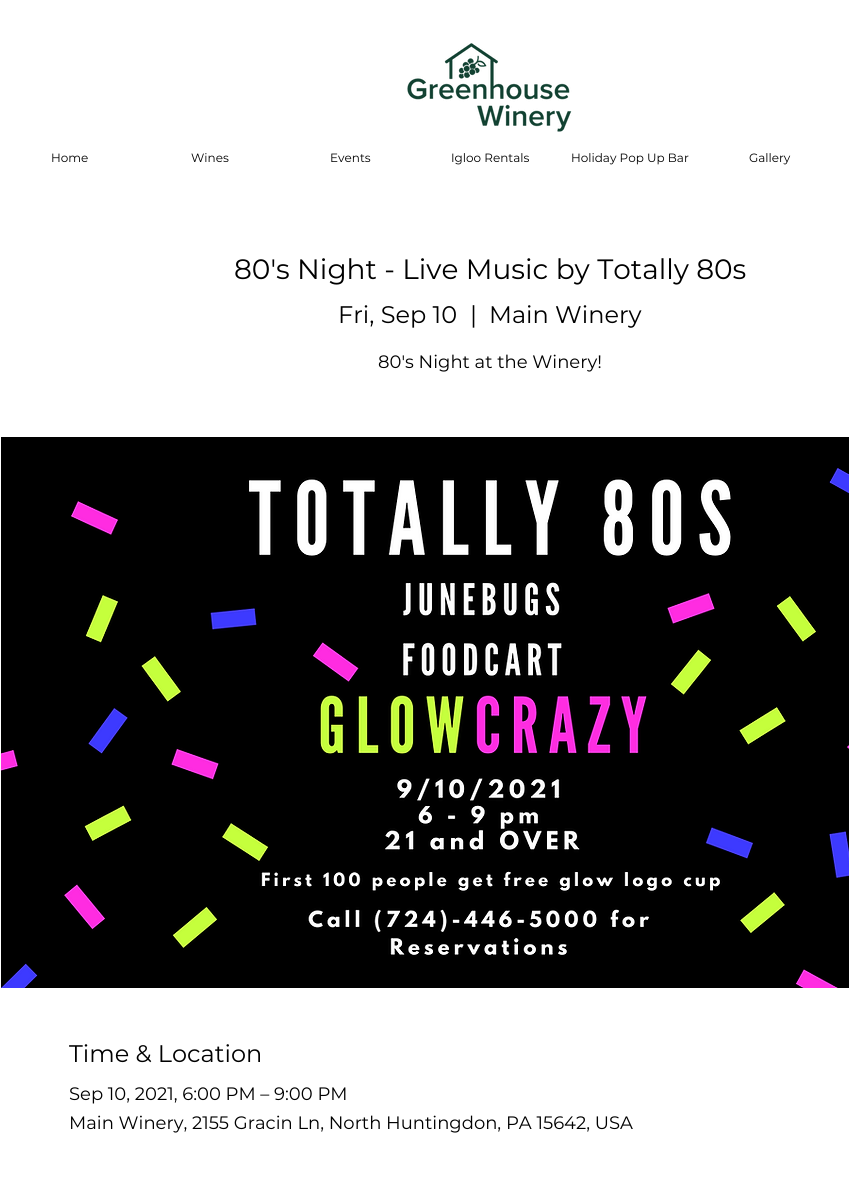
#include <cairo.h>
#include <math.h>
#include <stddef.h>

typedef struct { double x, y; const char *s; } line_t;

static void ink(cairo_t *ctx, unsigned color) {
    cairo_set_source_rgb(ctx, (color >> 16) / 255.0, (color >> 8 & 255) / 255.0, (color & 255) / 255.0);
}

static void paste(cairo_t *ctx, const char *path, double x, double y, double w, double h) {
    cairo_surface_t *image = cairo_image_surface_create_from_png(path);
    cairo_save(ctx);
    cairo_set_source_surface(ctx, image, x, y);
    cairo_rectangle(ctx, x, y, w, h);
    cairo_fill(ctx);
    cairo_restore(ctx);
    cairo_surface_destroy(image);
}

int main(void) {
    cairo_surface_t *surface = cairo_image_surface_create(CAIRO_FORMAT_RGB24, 849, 1185);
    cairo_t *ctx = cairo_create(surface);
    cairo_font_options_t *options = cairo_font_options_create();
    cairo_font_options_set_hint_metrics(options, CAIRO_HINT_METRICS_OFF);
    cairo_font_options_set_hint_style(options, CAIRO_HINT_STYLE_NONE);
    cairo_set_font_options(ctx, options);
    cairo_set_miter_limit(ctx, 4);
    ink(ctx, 0xFFFFFF);
    cairo_paint(ctx);
    paste(ctx, "media/1.png", 407, 43, 165, 89);
    cairo_select_font_face(ctx, "Montserrat", CAIRO_FONT_SLANT_NORMAL, CAIRO_FONT_WEIGHT_NORMAL);
    cairo_set_font_size(ctx, 12);
    ink(ctx, 0x000000);
    {
        static const line_t items[] = {
            {51, 162, "Home"},
            {191, 162, "Wines"},
            {330, 162, "Events"},
            {451, 162, "Igloo Rentals"},
            {571, 162, "Holiday Pop Up Bar"},
            {749, 162, "Gallery"},
        };
        for (size_t i = 0; i < sizeof items / sizeof *items; i++) {
            cairo_move_to(ctx, items[i].x, items[i].y);
            cairo_show_text(ctx, items[i].s);
        }
    }
    cairo_set_font_size(ctx, 28);
    cairo_move_to(ctx, 234, 279);
    cairo_show_text(ctx, "80's Night - Live Music by Totally 80s");
    cairo_set_font_size(ctx, 24);
    {
        static const line_t items[] = {
            {338, 323, "Fri, Sep 10"},
            {470, 323, "|"},
            {489, 323, "Main Winery"},
        };
        for (size_t i = 0; i < sizeof items / sizeof *items; i++) {
            cairo_move_to(ctx, items[i].x, items[i].y);
            cairo_show_text(ctx, items[i].s);
        }
    }
    cairo_set_font_size(ctx, 18);
    cairo_move_to(ctx, 378, 368);
    cairo_show_text(ctx, "80's Night at the Winery!");
    paste(ctx, "media/2.png", 1, 437, 848, 551);
    cairo_set_font_size(ctx, 24);
    cairo_move_to(ctx, 69, 1062);
    cairo_show_text(ctx, "Time & Location");
    cairo_set_font_size(ctx, 18);
    cairo_move_to(ctx, 69, 1100);
    cairo_show_text(ctx, "Sep 10, 2021, 6:00 PM – 9:00 PM");
    cairo_move_to(ctx, 69, 1129);
    cairo_show_text(ctx, "Main Winery, 2155 Gracin Ln, North Huntingdon, PA 15642, USA");
    cairo_surface_write_to_png(surface, "image.png");
    cairo_font_options_destroy(options);
    cairo_destroy(ctx);
    cairo_surface_destroy(surface);
    return 0;
}
